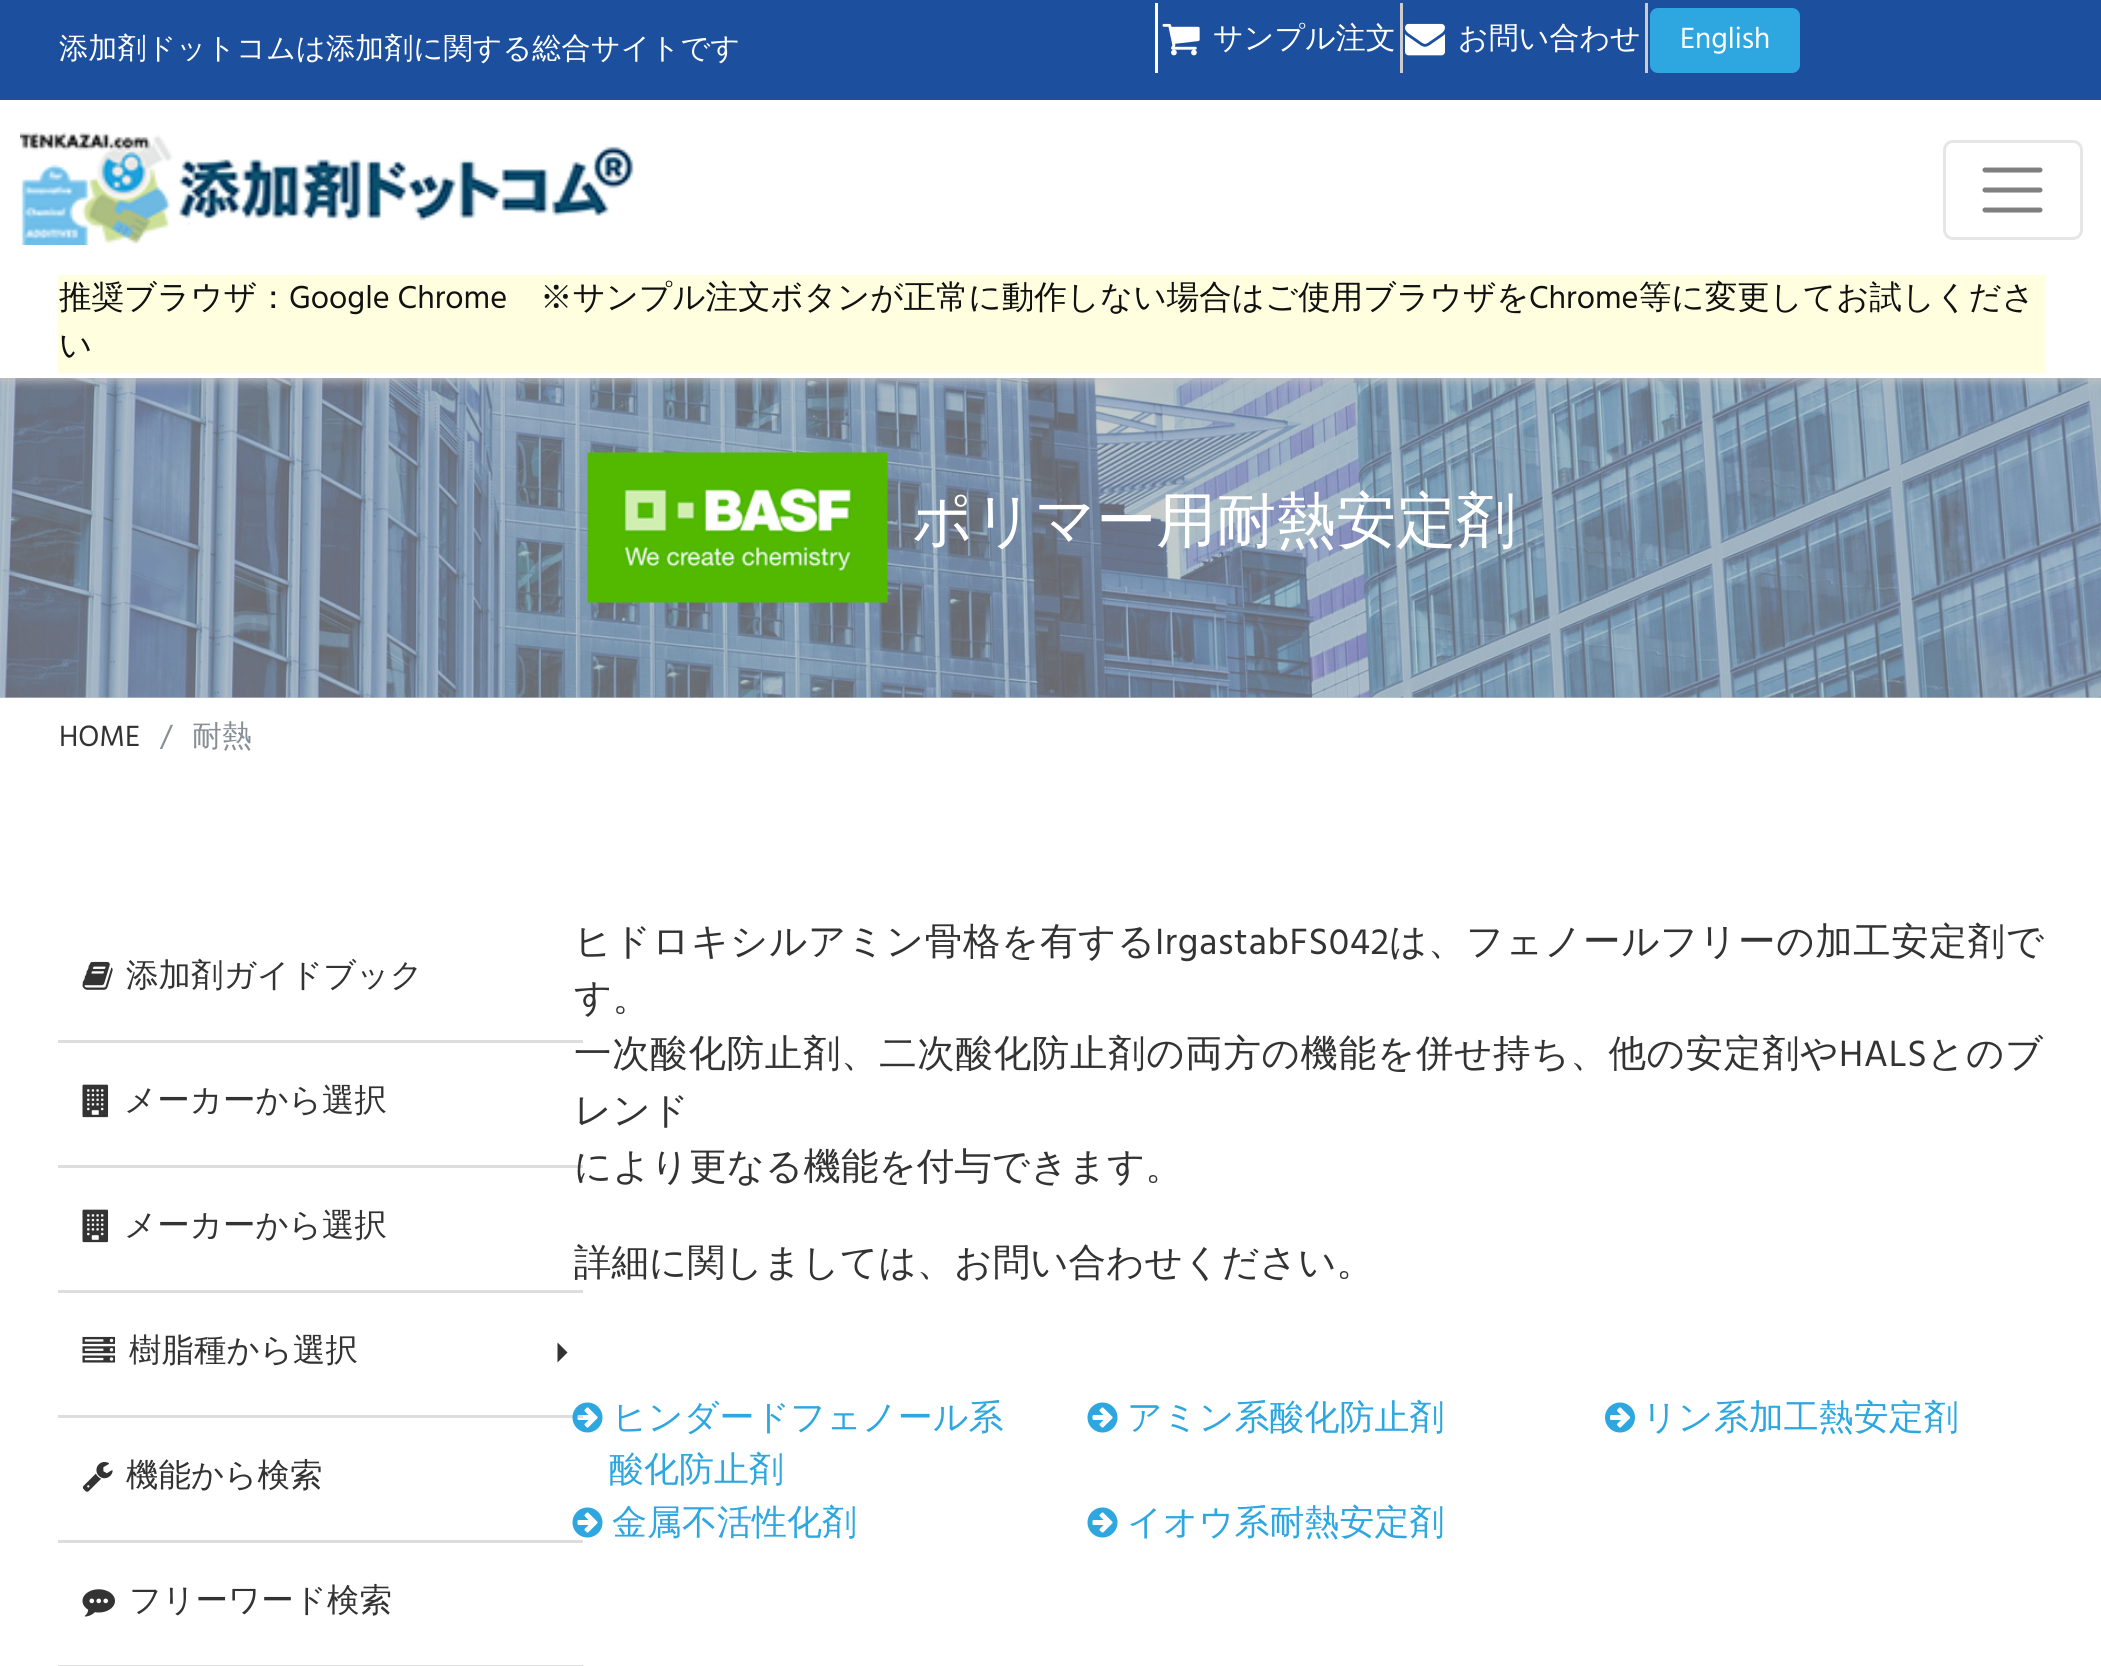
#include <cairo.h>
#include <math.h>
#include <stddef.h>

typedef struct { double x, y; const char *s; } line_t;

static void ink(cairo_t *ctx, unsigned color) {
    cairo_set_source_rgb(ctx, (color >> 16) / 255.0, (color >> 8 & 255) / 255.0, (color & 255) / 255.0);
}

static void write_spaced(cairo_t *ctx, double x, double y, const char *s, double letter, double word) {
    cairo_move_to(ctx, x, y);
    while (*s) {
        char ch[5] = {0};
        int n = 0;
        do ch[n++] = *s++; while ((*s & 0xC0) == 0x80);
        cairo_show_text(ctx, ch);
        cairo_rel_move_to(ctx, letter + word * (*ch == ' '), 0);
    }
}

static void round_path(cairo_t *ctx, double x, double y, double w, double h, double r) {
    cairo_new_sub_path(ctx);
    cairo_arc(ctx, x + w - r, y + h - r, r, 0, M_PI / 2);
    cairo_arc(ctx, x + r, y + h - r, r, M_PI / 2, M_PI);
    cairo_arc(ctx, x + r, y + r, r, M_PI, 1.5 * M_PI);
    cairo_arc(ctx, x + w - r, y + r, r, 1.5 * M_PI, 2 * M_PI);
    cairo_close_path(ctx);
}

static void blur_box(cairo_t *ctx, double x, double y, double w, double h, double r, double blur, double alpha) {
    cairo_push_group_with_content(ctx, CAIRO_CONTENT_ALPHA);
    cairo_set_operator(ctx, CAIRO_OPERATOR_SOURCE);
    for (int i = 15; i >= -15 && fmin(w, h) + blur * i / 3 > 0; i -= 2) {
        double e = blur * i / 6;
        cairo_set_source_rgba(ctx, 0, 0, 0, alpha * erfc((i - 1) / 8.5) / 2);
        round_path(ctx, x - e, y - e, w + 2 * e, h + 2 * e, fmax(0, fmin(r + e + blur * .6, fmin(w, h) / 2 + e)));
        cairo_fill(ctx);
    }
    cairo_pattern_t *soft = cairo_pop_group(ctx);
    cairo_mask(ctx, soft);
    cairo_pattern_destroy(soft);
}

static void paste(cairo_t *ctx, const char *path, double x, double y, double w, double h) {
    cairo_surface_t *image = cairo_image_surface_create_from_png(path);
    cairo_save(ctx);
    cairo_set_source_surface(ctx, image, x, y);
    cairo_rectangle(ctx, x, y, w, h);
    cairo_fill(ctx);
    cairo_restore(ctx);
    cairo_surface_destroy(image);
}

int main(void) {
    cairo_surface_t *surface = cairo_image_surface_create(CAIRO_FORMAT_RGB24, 2101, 1666);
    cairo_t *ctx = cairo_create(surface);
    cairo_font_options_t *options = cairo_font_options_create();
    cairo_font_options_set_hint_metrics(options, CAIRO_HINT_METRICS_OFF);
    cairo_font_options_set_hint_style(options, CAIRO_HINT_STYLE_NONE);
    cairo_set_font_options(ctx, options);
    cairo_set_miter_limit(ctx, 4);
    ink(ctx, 0xFFFFFF);
    cairo_paint(ctx);
    ink(ctx, 0xCCCCCC);
    cairo_rectangle(ctx, 0, 697, 2101, 1);
    cairo_fill(ctx);
    paste(ctx, "media/4.png", 0, 378, 2101, 320);
    cairo_save(ctx);
    cairo_rectangle(ctx, 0, 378, 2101, 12);
    cairo_clip(ctx);
    ink(ctx, 0xC3C2C2);
    blur_box(ctx, 0, 3, 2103, 377, 0, 5, 1);
    cairo_restore(ctx);
    ink(ctx, 0x1C509E);
    cairo_rectangle(ctx, 0, 0, 2101, 100);
    cairo_fill(ctx);
    cairo_select_font_face(ctx, "WenQuanYi Zen Hei Medium", CAIRO_FONT_SLANT_NORMAL, CAIRO_FONT_WEIGHT_NORMAL);
    cairo_set_font_size(ctx, 29.2);
    ink(ctx, 0xFFFFFF);
    cairo_move_to(ctx, 59, 58);
    cairo_show_text(ctx, "添加剤ドットコムは添加剤に関する総合サイトです");
    ink(ctx, 0xCCCCCC);
    cairo_rectangle(ctx, 1400, 3, 3, 70);
    cairo_fill(ctx);
    ink(ctx, 0xFFFFFF);
    cairo_rectangle(ctx, 1155, 3, 3, 70);
    cairo_fill(ctx);
    paste(ctx, "media/1.png", 1162, 23, 38, 33);
    cairo_set_font_size(ctx, 30);
    cairo_move_to(ctx, 1213, 48);
    cairo_show_text(ctx, "サンプル注文");
    ink(ctx, 0xCCCCCC);
    cairo_rectangle(ctx, 1645, 3, 3, 70);
    cairo_fill(ctx);
    paste(ctx, "media/2.png", 1405, 23, 40, 33);
    ink(ctx, 0xFFFFFF);
    cairo_move_to(ctx, 1458, 48);
    cairo_show_text(ctx, "お問い合わせ");
    ink(ctx, 0x2EA7E0);
    round_path(ctx, 1650, 8, 150, 65, 8);
    cairo_fill(ctx);
    cairo_select_font_face(ctx, "Hind", CAIRO_FONT_SLANT_NORMAL, CAIRO_FONT_WEIGHT_NORMAL);
    ink(ctx, 0xFFFFFF);
    cairo_move_to(ctx, 1680, 48);
    cairo_show_text(ctx, "English");
    paste(ctx, "media/3.png", 20, 132, 615, 113);
    round_path(ctx, 1944.5, 141.5, 137, 97, 8.5);
    ink(ctx, 0xE6E6E6);
    cairo_set_line_width(ctx, 3);
    cairo_stroke(ctx);
    cairo_new_path(ctx);
    cairo_move_to(ctx, 1985, 170);
    cairo_line_to(ctx, 2040, 170);
    cairo_move_to(ctx, 1985, 190);
    cairo_line_to(ctx, 2040, 190);
    cairo_move_to(ctx, 1985, 210);
    cairo_line_to(ctx, 2040, 210);
    ink(ctx, 0x808080);
    cairo_set_line_width(ctx, 5);
    cairo_set_line_cap(ctx, CAIRO_LINE_CAP_ROUND);
    cairo_stroke(ctx);
    ink(ctx, 0xFFFFFF);
    cairo_rectangle(ctx, 0, 377, 2101, 1);
    cairo_fill(ctx);
    ink(ctx, 0xFFFFE0);
    cairo_rectangle(ctx, 58, 275, 1987, 98);
    cairo_fill(ctx);
    cairo_select_font_face(ctx, "WenQuanYi Zen Hei Medium", CAIRO_FONT_SLANT_NORMAL, CAIRO_FONT_WEIGHT_NORMAL);
    cairo_set_font_size(ctx, 32.5);
    ink(ctx, 0x111111);
    cairo_move_to(ctx, 59, 308);
    cairo_show_text(ctx, "推奨ブラウザ：");
    cairo_select_font_face(ctx, "Hind", CAIRO_FONT_SLANT_NORMAL, CAIRO_FONT_WEIGHT_NORMAL);
    cairo_move_to(ctx, 289, 308);
    cairo_show_text(ctx, "Google Chrome");
    cairo_select_font_face(ctx, "WenQuanYi Zen Hei Medium", CAIRO_FONT_SLANT_NORMAL, CAIRO_FONT_WEIGHT_NORMAL);
    cairo_move_to(ctx, 540, 308);
    cairo_show_text(ctx, "※サンプル注文ボタンが正常に動作しない場合はご使用ブラウザを");
    cairo_select_font_face(ctx, "Hind", CAIRO_FONT_SLANT_NORMAL, CAIRO_FONT_WEIGHT_NORMAL);
    cairo_move_to(ctx, 1529, 308);
    cairo_show_text(ctx, "Chrome");
    cairo_select_font_face(ctx, "WenQuanYi Zen Hei Medium", CAIRO_FONT_SLANT_NORMAL, CAIRO_FONT_WEIGHT_NORMAL);
    cairo_move_to(ctx, 1639, 308);
    cairo_show_text(ctx, "等に変更してお試しくださ");
    cairo_move_to(ctx, 59, 356);
    cairo_show_text(ctx, "い");
    paste(ctx, "media/5.png", 587, 452, 301, 151);
    cairo_set_font_size(ctx, 60);
    ink(ctx, 0xFFFFFF);
    cairo_move_to(ctx, 912, 541);
    cairo_show_text(ctx, "ポリマー用耐熱安定剤");
    cairo_select_font_face(ctx, "Hind", CAIRO_FONT_SLANT_NORMAL, CAIRO_FONT_WEIGHT_NORMAL);
    cairo_set_font_size(ctx, 30);
    ink(ctx, 0x333333);
    cairo_move_to(ctx, 59, 746);
    cairo_show_text(ctx, "HOME");
    ink(ctx, 0x868E96);
    cairo_move_to(ctx, 160, 746);
    cairo_show_text(ctx, "/");
    cairo_select_font_face(ctx, "WenQuanYi Zen Hei Medium", CAIRO_FONT_SLANT_NORMAL, CAIRO_FONT_WEIGHT_NORMAL);
    cairo_move_to(ctx, 192, 746);
    cairo_show_text(ctx, "耐熱");
    ink(ctx, 0xDDDDDD);
    cairo_rectangle(ctx, 58, 1040, 525, 3);
    cairo_fill(ctx);
    paste(ctx, "media/6.png", 82, 961, 31, 29);
    cairo_set_font_size(ctx, 32.5);
    ink(ctx, 0x333333);
    cairo_move_to(ctx, 126, 986);
    cairo_show_text(ctx, "添加剤ガイドブック");
    ink(ctx, 0xDDDDDD);
    cairo_rectangle(ctx, 58, 1165, 525, 3);
    cairo_fill(ctx);
    paste(ctx, "media/7.png", 82, 1084, 27, 34);
    ink(ctx, 0x333333);
    cairo_move_to(ctx, 124, 1111);
    cairo_show_text(ctx, "メーカーから選択");
    ink(ctx, 0xDDDDDD);
    cairo_rectangle(ctx, 58, 1290, 525, 3);
    cairo_fill(ctx);
    paste(ctx, "media/7.png", 82, 1209, 27, 34);
    ink(ctx, 0x333333);
    cairo_move_to(ctx, 124, 1236);
    cairo_show_text(ctx, "メーカーから選択");
    ink(ctx, 0xDDDDDD);
    cairo_rectangle(ctx, 58, 1415, 525, 3);
    cairo_fill(ctx);
    paste(ctx, "media/8.png", 82, 1336, 33, 27);
    ink(ctx, 0x333333);
    cairo_move_to(ctx, 129, 1361);
    cairo_show_text(ctx, "樹脂種から選択");
    cairo_new_path(ctx);
    cairo_move_to(ctx, 557.5, 1362.5);
    cairo_line_to(ctx, 557.5, 1342.5);
    cairo_line_to(ctx, 567.5, 1352.5);
    cairo_close_path(ctx);
    cairo_fill(ctx);
    ink(ctx, 0xDDDDDD);
    cairo_rectangle(ctx, 58, 1540, 525, 3);
    cairo_fill(ctx);
    paste(ctx, "media/9.png", 82, 1462, 31, 30);
    ink(ctx, 0x333333);
    cairo_move_to(ctx, 126, 1486);
    cairo_show_text(ctx, "機能から検索");
    ink(ctx, 0xDDDDDD);
    cairo_rectangle(ctx, 58, 1665, 525, 1);
    cairo_fill(ctx);
    paste(ctx, "media/10.png", 82, 1589, 33, 28);
    ink(ctx, 0x333333);
    cairo_move_to(ctx, 129, 1611);
    cairo_show_text(ctx, "フリーワード検索");
    cairo_set_font_size(ctx, 37.5);
    write_spaced(ctx, 574, 954, "ヒドロキシルアミン骨格を有する", 0.6, 0);
    cairo_select_font_face(ctx, "Hind", CAIRO_FONT_SLANT_NORMAL, CAIRO_FONT_WEIGHT_NORMAL);
    write_spaced(ctx, 1155, 954, "IrgastabFS042", 0.6, 0);
    cairo_select_font_face(ctx, "WenQuanYi Zen Hei Medium", CAIRO_FONT_SLANT_NORMAL, CAIRO_FONT_WEIGHT_NORMAL);
    write_spaced(ctx, 1389, 954, "は、フェノールフリーの加工安定剤で", 0.6, 0);
    cairo_move_to(ctx, 574, 1010);
    cairo_show_text(ctx, "す。");
    write_spaced(ctx, 574, 1066, "一次酸化防止剤、二次酸化防止剤の両方の機能を併せ持ち、他の安定剤や", 0.65, 0);
    cairo_select_font_face(ctx, "Hind", CAIRO_FONT_SLANT_NORMAL, CAIRO_FONT_WEIGHT_NORMAL);
    write_spaced(ctx, 1839, 1066, "HALS", 0.65, 0);
    cairo_select_font_face(ctx, "WenQuanYi Zen Hei Medium", CAIRO_FONT_SLANT_NORMAL, CAIRO_FONT_WEIGHT_NORMAL);
    write_spaced(ctx, 1927, 1066, "とのブ", 0.65, 0);
    {
        static const line_t items[] = {
            {574, 1123, "レンド"},
            {574, 1179, "により更なる機能を付与できます。"},
            {574, 1275, "詳細に関しましては、お問い合わせください。"},
        };
        for (size_t i = 0; i < sizeof items / sizeof *items; i++) {
            cairo_move_to(ctx, items[i].x, items[i].y);
            cairo_show_text(ctx, items[i].s);
        }
    }
    paste(ctx, "media/11.png", 572, 1402, 31, 31);
    cairo_set_font_size(ctx, 35);
    ink(ctx, 0x2EA7E0);
    cairo_move_to(ctx, 612, 1429);
    cairo_show_text(ctx, "ヒンダードフェノール系");
    cairo_move_to(ctx, 609, 1481);
    cairo_show_text(ctx, "酸化防止剤");
    paste(ctx, "media/12.png", 1087, 1402, 31, 31);
    cairo_move_to(ctx, 1127, 1429);
    cairo_show_text(ctx, "アミン系酸化防止剤");
    paste(ctx, "media/13.png", 1605, 1402, 30, 31);
    cairo_move_to(ctx, 1642, 1429);
    cairo_show_text(ctx, "リン系加工熱安定剤");
    paste(ctx, "media/12.png", 572, 1507, 31, 31);
    cairo_move_to(ctx, 612, 1534);
    cairo_show_text(ctx, "金属不活性化剤");
    paste(ctx, "media/12.png", 1087, 1507, 31, 31);
    cairo_move_to(ctx, 1127, 1534);
    cairo_show_text(ctx, "イオウ系耐熱安定剤");
    cairo_surface_write_to_png(surface, "image.png");
    cairo_font_options_destroy(options);
    cairo_destroy(ctx);
    cairo_surface_destroy(surface);
    return 0;
}
